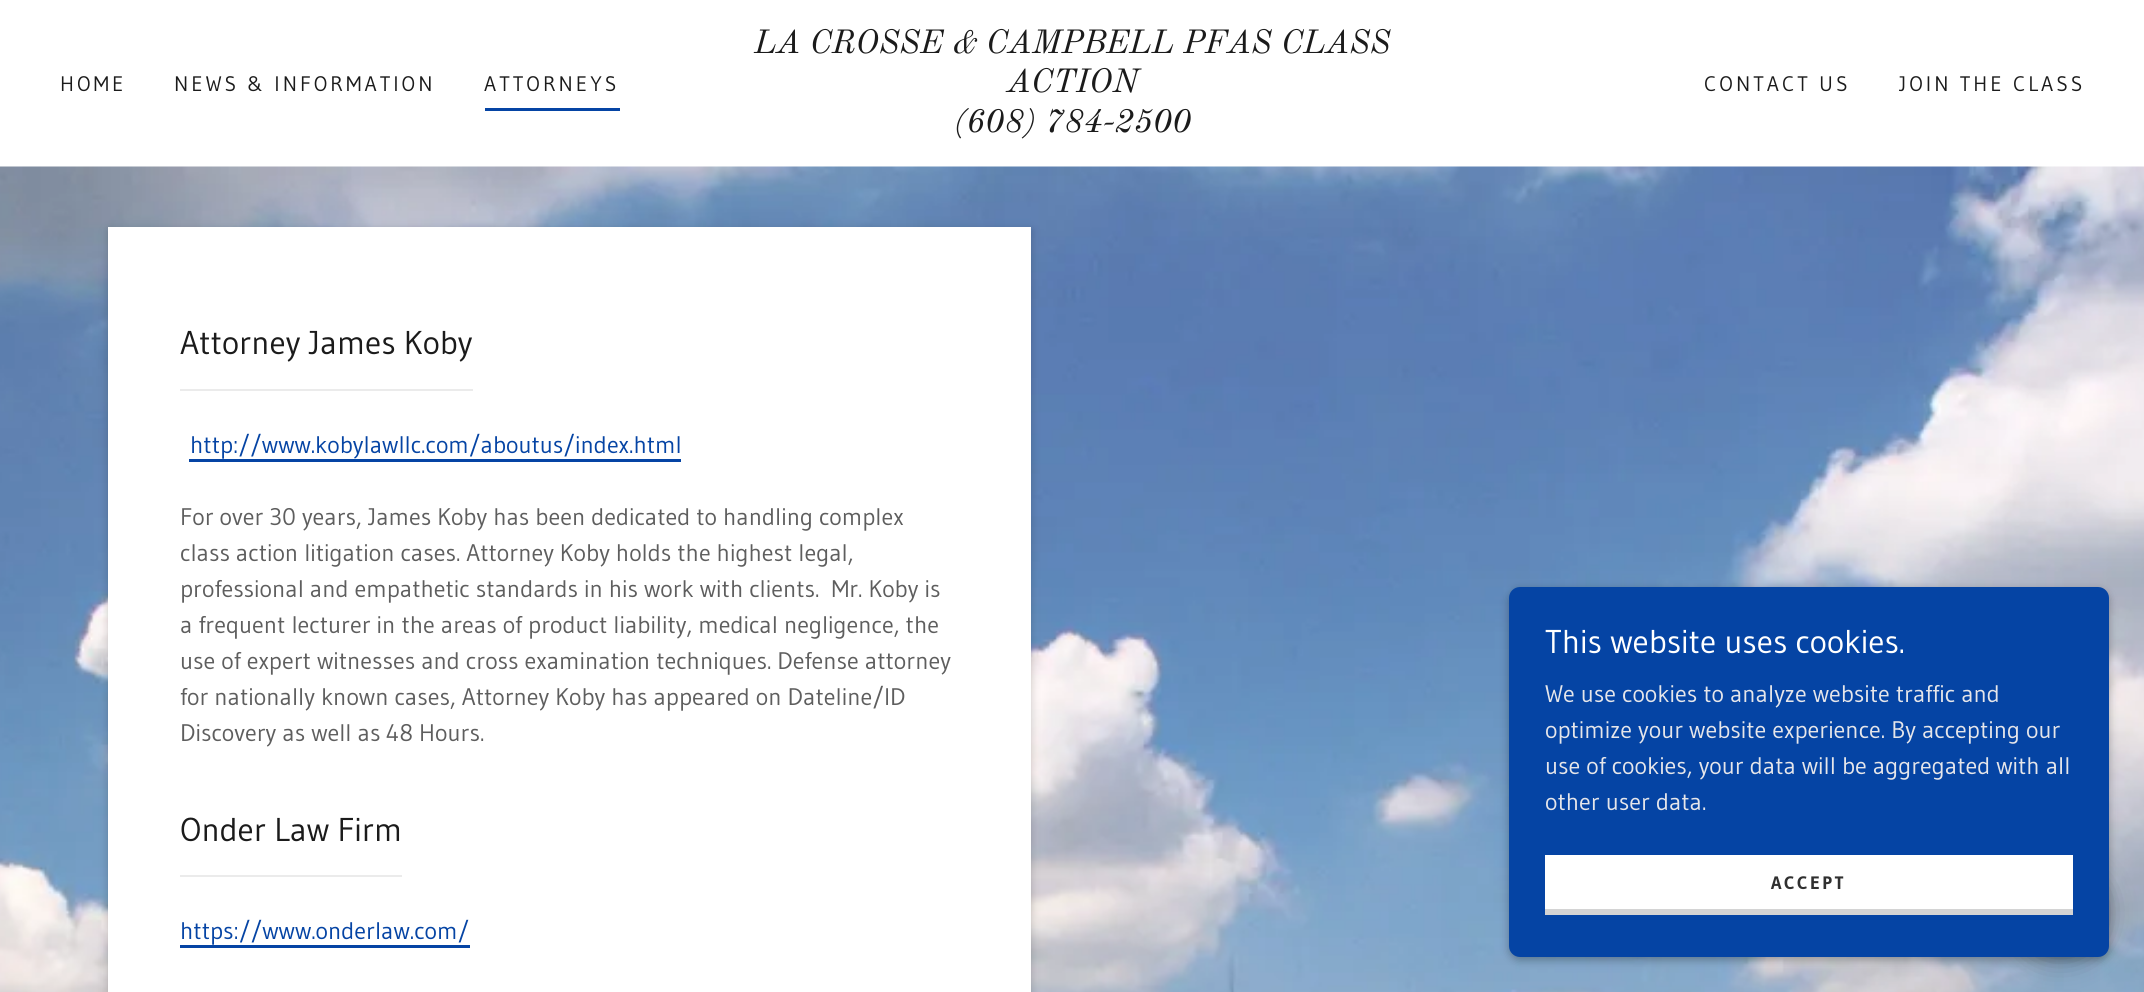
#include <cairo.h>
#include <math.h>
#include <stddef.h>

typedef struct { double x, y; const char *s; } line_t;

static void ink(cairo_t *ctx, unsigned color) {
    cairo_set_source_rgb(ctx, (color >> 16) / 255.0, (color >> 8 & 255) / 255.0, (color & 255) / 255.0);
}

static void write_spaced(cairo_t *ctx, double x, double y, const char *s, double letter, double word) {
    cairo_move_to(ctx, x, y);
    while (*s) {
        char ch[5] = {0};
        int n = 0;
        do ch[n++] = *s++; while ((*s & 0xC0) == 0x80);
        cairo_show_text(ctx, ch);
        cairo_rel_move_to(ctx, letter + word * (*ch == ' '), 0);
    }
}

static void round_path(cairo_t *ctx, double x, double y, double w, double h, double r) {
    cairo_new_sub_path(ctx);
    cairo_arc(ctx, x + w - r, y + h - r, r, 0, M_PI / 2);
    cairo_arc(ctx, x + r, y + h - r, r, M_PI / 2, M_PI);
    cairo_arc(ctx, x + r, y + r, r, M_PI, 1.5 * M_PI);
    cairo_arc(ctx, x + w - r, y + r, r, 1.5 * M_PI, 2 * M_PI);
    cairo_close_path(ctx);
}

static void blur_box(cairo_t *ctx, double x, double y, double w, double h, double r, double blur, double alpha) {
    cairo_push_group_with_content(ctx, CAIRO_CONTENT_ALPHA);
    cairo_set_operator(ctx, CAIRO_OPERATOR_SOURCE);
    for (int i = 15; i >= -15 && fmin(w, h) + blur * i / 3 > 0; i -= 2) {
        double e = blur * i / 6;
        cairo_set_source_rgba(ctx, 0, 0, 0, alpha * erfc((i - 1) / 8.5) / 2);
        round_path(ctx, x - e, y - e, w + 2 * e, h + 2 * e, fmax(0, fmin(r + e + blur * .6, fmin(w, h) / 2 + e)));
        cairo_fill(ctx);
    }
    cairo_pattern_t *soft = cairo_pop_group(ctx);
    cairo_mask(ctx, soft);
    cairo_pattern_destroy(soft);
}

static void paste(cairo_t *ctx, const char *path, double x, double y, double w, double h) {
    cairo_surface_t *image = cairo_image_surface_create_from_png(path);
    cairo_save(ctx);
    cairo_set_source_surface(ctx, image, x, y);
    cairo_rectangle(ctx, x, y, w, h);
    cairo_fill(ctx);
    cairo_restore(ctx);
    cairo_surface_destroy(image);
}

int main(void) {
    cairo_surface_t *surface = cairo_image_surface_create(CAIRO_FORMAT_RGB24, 2144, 992);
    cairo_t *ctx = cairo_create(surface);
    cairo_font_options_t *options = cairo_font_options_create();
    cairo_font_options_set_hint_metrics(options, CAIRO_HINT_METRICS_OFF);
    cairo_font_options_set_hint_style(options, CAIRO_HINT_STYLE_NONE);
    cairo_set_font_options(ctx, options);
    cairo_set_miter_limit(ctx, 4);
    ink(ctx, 0xFFFFFF);
    cairo_paint(ctx);
    cairo_select_font_face(ctx, "Gudea", CAIRO_FONT_SLANT_NORMAL, CAIRO_FONT_WEIGHT_NORMAL);
    cairo_set_font_size(ctx, 21);
    ink(ctx, 0x1B1B1B);
    write_spaced(ctx, 60, 91, "HOME", 3, 0);
    write_spaced(ctx, 174, 91, "NEWS & INFORMATION", 3, 0);
    ink(ctx, 0x0544A4);
    cairo_rectangle(ctx, 485, 108, 135, 3);
    cairo_fill(ctx);
    ink(ctx, 0x1B1B1B);
    write_spaced(ctx, 484, 91, "ATTORNEYS", 3, 0);
    cairo_select_font_face(ctx, "Old Standard TT", CAIRO_FONT_SLANT_ITALIC, CAIRO_FONT_WEIGHT_NORMAL);
    cairo_set_font_size(ctx, 33);
    {
        static const line_t items[] = {
            {754, 53, "LA CROSSE & CAMPBELL PFAS CLASS"},
            {1007, 92, "ACTION"},
            {954, 132, "(608) 784-2500"},
        };
        for (size_t i = 0; i < sizeof items / sizeof *items; i++) {
            cairo_move_to(ctx, items[i].x, items[i].y);
            cairo_show_text(ctx, items[i].s);
        }
    }
    cairo_select_font_face(ctx, "Gudea", CAIRO_FONT_SLANT_NORMAL, CAIRO_FONT_WEIGHT_NORMAL);
    cairo_set_font_size(ctx, 21);
    write_spaced(ctx, 1704, 91, "CONTACT US", 3, 0);
    write_spaced(ctx, 1899, 91, "JOIN THE CLASS", 3, 0);
    paste(ctx, "media/1.png", 0, 166, 2144, 826);
    ink(ctx, 0x000000);
    blur_box(ctx, 108, 230, 923, 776, 0, 4.5, 0.2);
    ink(ctx, 0xFFFFFF);
    cairo_rectangle(ctx, 108, 227, 923, 765);
    cairo_fill(ctx);
    ink(ctx, 0xEBEBEB);
    cairo_rectangle(ctx, 180, 389, 293, 2);
    cairo_fill(ctx);
    cairo_set_font_size(ctx, 33);
    ink(ctx, 0x1B1B1B);
    cairo_move_to(ctx, 180, 354);
    cairo_show_text(ctx, "Attorney James Koby");
    cairo_set_font_size(ctx, 24);
    ink(ctx, 0x0544A4);
    cairo_move_to(ctx, 190, 453);
    cairo_show_text(ctx, "http://www.kobylawllc.com/aboutus/index.html");
    cairo_rectangle(ctx, 189, 459, 492, 3);
    cairo_fill(ctx);
    ink(ctx, 0x5E5E5E);
    {
        static const line_t items[] = {
            {180, 525, "For over 30 years, James Koby has been dedicated to handling complex"},
            {180, 561, "class action litigation cases. Attorney Koby holds the highest legal,"},
            {180, 597, "professional and empathetic standards in his work with clients.  Mr. Koby is"},
            {180, 633, "a frequent lecturer in the areas of product liability, medical negligence, the"},
            {180, 669, "use of expert witnesses and cross examination techniques. Defense attorney"},
            {180, 705, "for nationally known cases, Attorney Koby has appeared on Dateline/ID"},
            {180, 741, "Discovery as well as 48 Hours."},
        };
        for (size_t i = 0; i < sizeof items / sizeof *items; i++) {
            cairo_move_to(ctx, items[i].x, items[i].y);
            cairo_show_text(ctx, items[i].s);
        }
    }
    ink(ctx, 0xEBEBEB);
    cairo_rectangle(ctx, 180, 875, 222, 2);
    cairo_fill(ctx);
    cairo_set_font_size(ctx, 33);
    ink(ctx, 0x1B1B1B);
    cairo_move_to(ctx, 180, 841);
    cairo_show_text(ctx, "Onder Law Firm");
    cairo_set_font_size(ctx, 24);
    ink(ctx, 0x0544A4);
    cairo_move_to(ctx, 180, 939);
    cairo_show_text(ctx, "https://www.onderlaw.com/");
    cairo_rectangle(ctx, 180, 945, 290, 3);
    cairo_fill(ctx);
    ink(ctx, 0x000000);
    blur_box(ctx, 1509, 590, 600, 370, 11, 4.5, 0.3);
    blur_box(ctx, 2012, 864, 97, 98, 48.5, 13.5, 0.25);
    ink(ctx, 0x0544A4);
    round_path(ctx, 1509, 587, 600, 370, 11);
    cairo_fill(ctx);
    cairo_set_font_size(ctx, 33);
    ink(ctx, 0xFFFFFF);
    cairo_move_to(ctx, 1545, 653);
    cairo_show_text(ctx, "This website uses cookies.");
    cairo_set_font_size(ctx, 24);
    ink(ctx, 0xE6E6EA);
    {
        static const line_t items[] = {
            {1545, 702, "We use cookies to analyze website traffic and"},
            {1545, 738, "optimize your website experience. By accepting our"},
            {1545, 774, "use of cookies, your data will be aggregated with all"},
            {1545, 810, "other user data."},
        };
        for (size_t i = 0; i < sizeof items / sizeof *items; i++) {
            cairo_move_to(ctx, items[i].x, items[i].y);
            cairo_show_text(ctx, items[i].s);
        }
    }
    ink(ctx, 0xFFFFFF);
    cairo_rectangle(ctx, 1545, 855, 528, 54);
    cairo_fill(ctx);
    ink(ctx, 0xD4D4D4);
    cairo_rectangle(ctx, 1545, 909, 528, 6);
    cairo_fill(ctx);
    cairo_select_font_face(ctx, "Gudea", CAIRO_FONT_SLANT_NORMAL, CAIRO_FONT_WEIGHT_BOLD);
    cairo_set_font_size(ctx, 18);
    ink(ctx, 0x303030);
    write_spaced(ctx, 1771, 889, "ACCEPT", 2.5, 0);
    cairo_surface_write_to_png(surface, "image.png");
    cairo_font_options_destroy(options);
    cairo_destroy(ctx);
    cairo_surface_destroy(surface);
    return 0;
}
